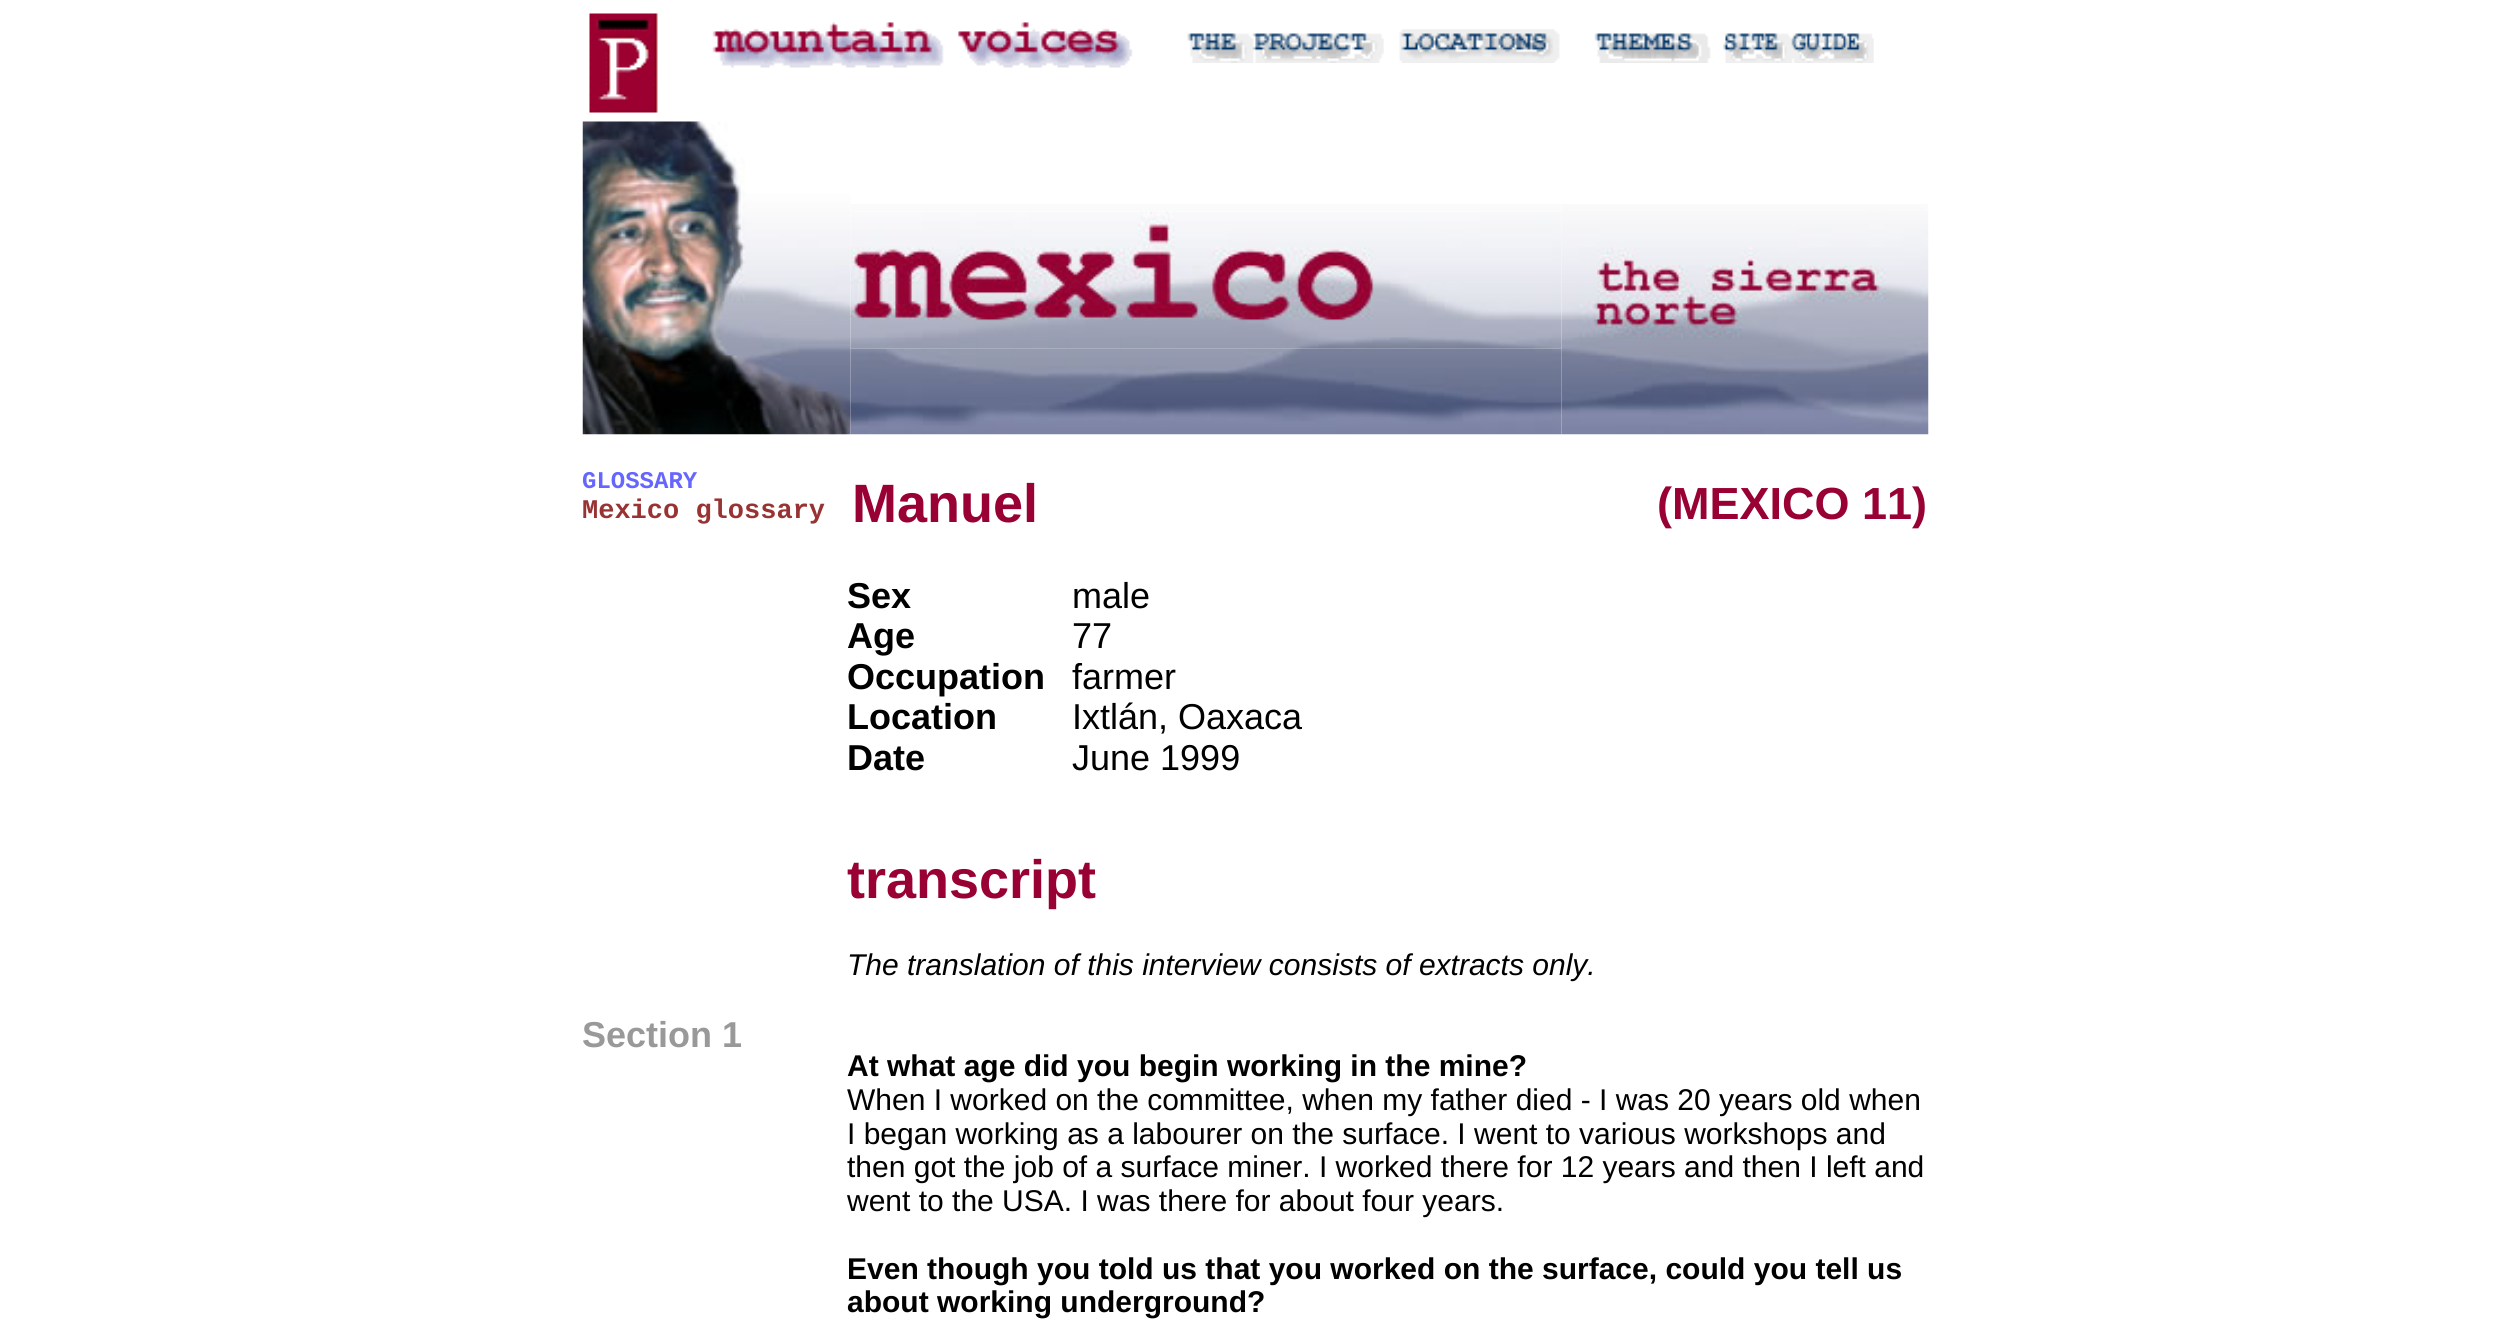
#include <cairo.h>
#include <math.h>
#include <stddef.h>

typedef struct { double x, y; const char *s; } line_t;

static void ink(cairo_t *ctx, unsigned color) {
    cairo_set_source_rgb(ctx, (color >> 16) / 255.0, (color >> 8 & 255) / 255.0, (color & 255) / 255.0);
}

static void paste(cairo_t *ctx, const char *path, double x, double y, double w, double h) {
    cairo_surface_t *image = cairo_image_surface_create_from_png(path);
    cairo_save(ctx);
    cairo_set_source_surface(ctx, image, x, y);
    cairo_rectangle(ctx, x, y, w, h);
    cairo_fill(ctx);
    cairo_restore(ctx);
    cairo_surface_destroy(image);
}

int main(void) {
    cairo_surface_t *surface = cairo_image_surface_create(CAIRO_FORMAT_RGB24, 2513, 1326);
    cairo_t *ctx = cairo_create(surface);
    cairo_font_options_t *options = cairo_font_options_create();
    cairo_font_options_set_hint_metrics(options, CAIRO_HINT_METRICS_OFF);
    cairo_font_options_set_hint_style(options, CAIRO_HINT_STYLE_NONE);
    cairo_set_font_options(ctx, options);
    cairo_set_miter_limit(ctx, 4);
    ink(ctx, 0xFFFFFF);
    cairo_paint(ctx);
    paste(ctx, "media/1.png", 589, 13, 69, 100);
    paste(ctx, "media/2.png", 712, 22, 421, 46);
    paste(ctx, "media/3.png", 1187, 33, 197, 30);
    paste(ctx, "media/4.png", 1399, 29, 161, 34);
    paste(ctx, "media/5.png", 1594, 33, 117, 30);
    paste(ctx, "media/6.png", 1723, 33, 151, 30);
    paste(ctx, "media/7.png", 582, 121, 269, 314);
    ink(ctx, 0xFAFAFA);
    cairo_rectangle(ctx, 851, 204, 710, 7);
    cairo_fill(ctx);
    paste(ctx, "media/8.png", 1561, 204, 368, 231);
    paste(ctx, "media/9.png", 850, 211, 712, 138);
    paste(ctx, "media/10.png", 850, 348, 712, 87);
    cairo_select_font_face(ctx, "Liberation Mono", CAIRO_FONT_SLANT_NORMAL, CAIRO_FONT_WEIGHT_BOLD);
    cairo_set_font_size(ctx, 24);
    ink(ctx, 0x6666FF);
    cairo_move_to(ctx, 582, 488);
    cairo_show_text(ctx, "GLOSSARY");
    cairo_set_font_size(ctx, 27);
    ink(ctx, 0x993333);
    cairo_move_to(ctx, 582, 518);
    cairo_show_text(ctx, "Mexico glossary");
    cairo_select_font_face(ctx, "Liberation Sans", CAIRO_FONT_SLANT_NORMAL, CAIRO_FONT_WEIGHT_BOLD);
    cairo_set_font_size(ctx, 54);
    ink(ctx, 0x990033);
    cairo_move_to(ctx, 852, 522);
    cairo_show_text(ctx, "Manuel");
    cairo_set_font_size(ctx, 45);
    cairo_move_to(ctx, 1657, 519);
    cairo_show_text(ctx, "(MEXICO 11)");
    cairo_set_font_size(ctx, 36);
    ink(ctx, 0x000000);
    cairo_move_to(ctx, 847, 608);
    cairo_show_text(ctx, "Sex");
    cairo_select_font_face(ctx, "Liberation Sans", CAIRO_FONT_SLANT_NORMAL, CAIRO_FONT_WEIGHT_NORMAL);
    cairo_move_to(ctx, 1072, 608);
    cairo_show_text(ctx, "male");
    cairo_select_font_face(ctx, "Liberation Sans", CAIRO_FONT_SLANT_NORMAL, CAIRO_FONT_WEIGHT_BOLD);
    cairo_move_to(ctx, 847, 648);
    cairo_show_text(ctx, "Age");
    cairo_select_font_face(ctx, "Liberation Sans", CAIRO_FONT_SLANT_NORMAL, CAIRO_FONT_WEIGHT_NORMAL);
    cairo_move_to(ctx, 1072, 648);
    cairo_show_text(ctx, "77");
    cairo_select_font_face(ctx, "Liberation Sans", CAIRO_FONT_SLANT_NORMAL, CAIRO_FONT_WEIGHT_BOLD);
    cairo_move_to(ctx, 847, 689);
    cairo_show_text(ctx, "Occupation");
    cairo_select_font_face(ctx, "Liberation Sans", CAIRO_FONT_SLANT_NORMAL, CAIRO_FONT_WEIGHT_NORMAL);
    cairo_move_to(ctx, 1072, 689);
    cairo_show_text(ctx, "farmer");
    cairo_select_font_face(ctx, "Liberation Sans", CAIRO_FONT_SLANT_NORMAL, CAIRO_FONT_WEIGHT_BOLD);
    cairo_move_to(ctx, 847, 729);
    cairo_show_text(ctx, "Location");
    cairo_select_font_face(ctx, "Liberation Sans", CAIRO_FONT_SLANT_NORMAL, CAIRO_FONT_WEIGHT_NORMAL);
    cairo_move_to(ctx, 1072, 729);
    cairo_show_text(ctx, "Ixtlán, Oaxaca");
    cairo_select_font_face(ctx, "Liberation Sans", CAIRO_FONT_SLANT_NORMAL, CAIRO_FONT_WEIGHT_BOLD);
    cairo_move_to(ctx, 847, 770);
    cairo_show_text(ctx, "Date");
    cairo_select_font_face(ctx, "Liberation Sans", CAIRO_FONT_SLANT_NORMAL, CAIRO_FONT_WEIGHT_NORMAL);
    cairo_move_to(ctx, 1072, 770);
    cairo_show_text(ctx, "June 1999");
    cairo_select_font_face(ctx, "Liberation Sans", CAIRO_FONT_SLANT_NORMAL, CAIRO_FONT_WEIGHT_BOLD);
    cairo_set_font_size(ctx, 54);
    ink(ctx, 0x990033);
    cairo_move_to(ctx, 847, 898);
    cairo_show_text(ctx, "transcript");
    cairo_select_font_face(ctx, "Liberation Sans", CAIRO_FONT_SLANT_ITALIC, CAIRO_FONT_WEIGHT_NORMAL);
    cairo_set_font_size(ctx, 30);
    ink(ctx, 0x000000);
    cairo_move_to(ctx, 847, 975);
    cairo_show_text(ctx, "The translation of this interview consists of extracts only.");
    cairo_select_font_face(ctx, "Liberation Sans", CAIRO_FONT_SLANT_NORMAL, CAIRO_FONT_WEIGHT_BOLD);
    cairo_set_font_size(ctx, 36);
    ink(ctx, 0x999999);
    cairo_move_to(ctx, 582, 1047);
    cairo_show_text(ctx, "Section 1");
    cairo_set_font_size(ctx, 30);
    ink(ctx, 0x000000);
    cairo_move_to(ctx, 847, 1076);
    cairo_show_text(ctx, "At what age did you begin working in the mine?");
    cairo_select_font_face(ctx, "Liberation Sans", CAIRO_FONT_SLANT_NORMAL, CAIRO_FONT_WEIGHT_NORMAL);
    {
        static const line_t items[] = {
            {847, 1110, "When I worked on the committee, when my father died - I was 20 years old when"},
            {847, 1144, "I began working as a labourer on the surface. I went to various workshops and"},
            {847, 1177, "then got the job of a surface miner. I worked there for 12 years and then I left and"},
            {847, 1211, "went to the USA. I was there for about four years."},
        };
        for (size_t i = 0; i < sizeof items / sizeof *items; i++) {
            cairo_move_to(ctx, items[i].x, items[i].y);
            cairo_show_text(ctx, items[i].s);
        }
    }
    cairo_select_font_face(ctx, "Liberation Sans", CAIRO_FONT_SLANT_NORMAL, CAIRO_FONT_WEIGHT_BOLD);
    cairo_move_to(ctx, 847, 1279);
    cairo_show_text(ctx, "Even though you told us that you worked on the surface, could you tell us");
    cairo_move_to(ctx, 847, 1312);
    cairo_show_text(ctx, "about working underground?");
    cairo_surface_write_to_png(surface, "image.png");
    cairo_font_options_destroy(options);
    cairo_destroy(ctx);
    cairo_surface_destroy(surface);
    return 0;
}
